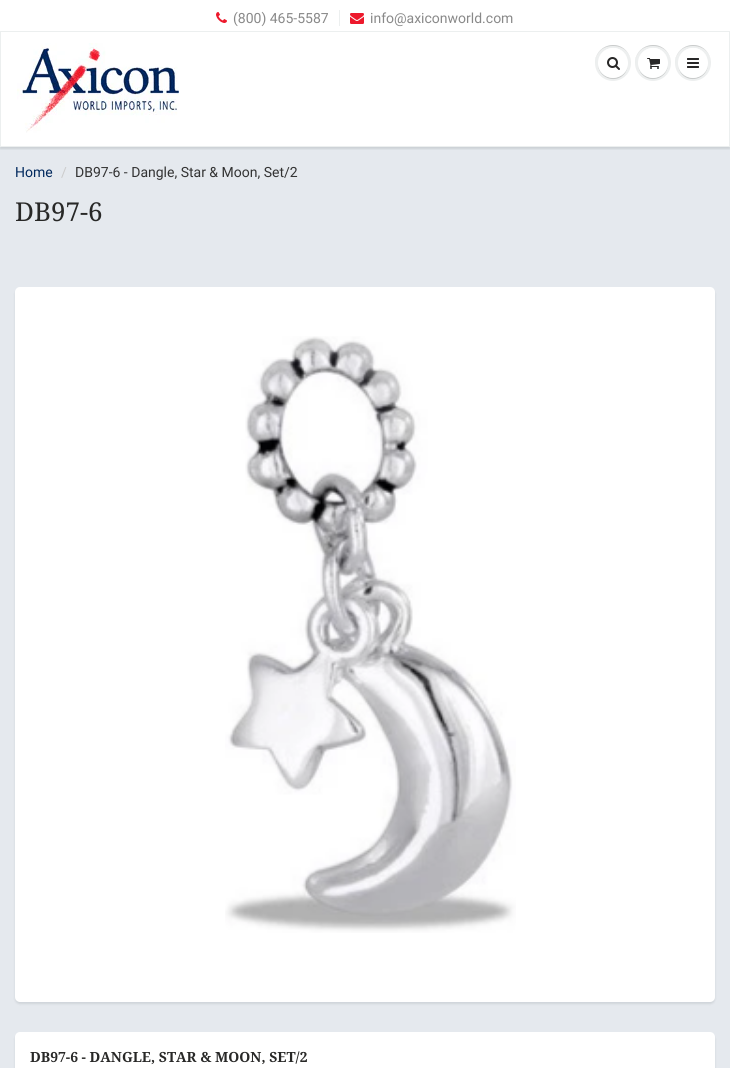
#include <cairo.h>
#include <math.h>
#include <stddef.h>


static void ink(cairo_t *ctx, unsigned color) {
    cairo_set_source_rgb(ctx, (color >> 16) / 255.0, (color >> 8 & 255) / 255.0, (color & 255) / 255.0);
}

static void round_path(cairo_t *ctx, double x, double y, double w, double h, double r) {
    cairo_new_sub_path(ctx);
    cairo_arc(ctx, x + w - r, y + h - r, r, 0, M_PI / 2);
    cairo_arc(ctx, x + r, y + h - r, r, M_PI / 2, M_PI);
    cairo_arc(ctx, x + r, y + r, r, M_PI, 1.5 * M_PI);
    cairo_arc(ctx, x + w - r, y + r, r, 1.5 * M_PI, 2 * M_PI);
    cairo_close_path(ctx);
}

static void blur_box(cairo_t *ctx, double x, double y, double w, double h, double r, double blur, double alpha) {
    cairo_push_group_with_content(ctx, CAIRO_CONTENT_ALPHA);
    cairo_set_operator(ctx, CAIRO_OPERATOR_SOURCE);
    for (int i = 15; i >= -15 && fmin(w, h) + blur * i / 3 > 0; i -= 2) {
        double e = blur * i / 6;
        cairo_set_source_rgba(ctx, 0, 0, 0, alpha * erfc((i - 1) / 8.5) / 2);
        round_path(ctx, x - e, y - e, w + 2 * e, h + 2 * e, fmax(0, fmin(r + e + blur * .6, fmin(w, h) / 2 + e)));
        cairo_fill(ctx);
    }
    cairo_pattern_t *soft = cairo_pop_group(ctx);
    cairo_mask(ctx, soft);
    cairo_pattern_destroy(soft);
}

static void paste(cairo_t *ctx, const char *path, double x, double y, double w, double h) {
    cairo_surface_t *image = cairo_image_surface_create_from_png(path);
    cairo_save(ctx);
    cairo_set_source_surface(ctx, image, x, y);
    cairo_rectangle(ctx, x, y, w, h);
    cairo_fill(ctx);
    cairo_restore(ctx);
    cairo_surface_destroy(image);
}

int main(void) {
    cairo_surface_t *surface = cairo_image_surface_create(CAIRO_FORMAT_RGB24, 730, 1068);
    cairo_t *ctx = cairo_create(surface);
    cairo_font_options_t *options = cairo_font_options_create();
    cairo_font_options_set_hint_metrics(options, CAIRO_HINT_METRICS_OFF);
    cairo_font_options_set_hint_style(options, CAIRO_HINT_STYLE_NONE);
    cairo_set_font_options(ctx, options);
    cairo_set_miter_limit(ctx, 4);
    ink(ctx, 0xFFFFFF);
    cairo_paint(ctx);
    paste(ctx, "media/1.png", 216, 12, 11, 11);
    cairo_select_font_face(ctx, "Roboto", CAIRO_FONT_SLANT_NORMAL, CAIRO_FONT_WEIGHT_NORMAL);
    cairo_set_font_size(ctx, 14);
    ink(ctx, 0x898989);
    cairo_move_to(ctx, 233, 23);
    cairo_show_text(ctx, "(800) 465-5587");
    ink(ctx, 0xECEFEF);
    cairo_rectangle(ctx, 339, 10, 1, 16);
    cairo_fill(ctx);
    paste(ctx, "media/2.png", 350, 13, 14, 11);
    ink(ctx, 0x898989);
    cairo_move_to(ctx, 370, 23);
    cairo_show_text(ctx, "info@axiconworld.com");
    ink(ctx, 0xE5E9EE);
    cairo_rectangle(ctx, 0, 147, 730, 921);
    cairo_fill(ctx);
    cairo_save(ctx);
    cairo_rectangle(ctx, 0, 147, 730, 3);
    cairo_clip(ctx);
    ink(ctx, 0x0B191C);
    blur_box(ctx, 0, 33, 730, 116, 0, 1, 0.12);
    cairo_restore(ctx);
    cairo_rectangle(ctx, 0.5, 31.5, 729, 115);
    ink(ctx, 0xECEFEF);
    cairo_set_line_width(ctx, 1);
    cairo_stroke(ctx);
    paste(ctx, "media/3.png", 17, 43, 162, 90);
    ink(ctx, 0xEDEFEF);
    cairo_arc(ctx, 613, 63, 18, 0, 2 * M_PI);
    cairo_fill(ctx);
    ink(ctx, 0xC9CBCB);
    cairo_new_path(ctx);
    cairo_move_to(ctx, 613, 46);
    cairo_curve_to(ctx, 625, 46, 631, 54.5, 631, 63.5);
    cairo_curve_to(ctx, 631, 60, 630, 56, 628, 53);
    cairo_curve_to(ctx, 618, 38, 594.5, 45.5, 595, 63.5);
    cairo_curve_to(ctx, 595, 54.5, 601, 46, 613, 46);
    cairo_close_path(ctx);
    cairo_fill(ctx);
    cairo_new_path(ctx);
    cairo_move_to(ctx, 628, 63.5);
    cairo_curve_to(ctx, 627.5, 82.5, 598.5, 82.5, 598, 63.5);
    cairo_curve_to(ctx, 597.5, 78.5, 617, 85, 625.5, 72.5);
    cairo_curve_to(ctx, 627, 70, 628, 66.5, 628, 63.5);
    cairo_close_path(ctx);
    cairo_fill(ctx);
    ink(ctx, 0xFFFFFF);
    cairo_arc(ctx, 613, 63, 15, 0, 2 * M_PI);
    cairo_fill(ctx);
    cairo_new_path(ctx);
    cairo_move_to(ctx, 613, 49);
    cairo_curve_to(ctx, 623, 49, 628, 56, 628, 63.5);
    cairo_curve_to(ctx, 628, 60.5, 627, 57, 625.5, 54.5);
    cairo_curve_to(ctx, 617, 42, 597.5, 48.5, 598, 63.5);
    cairo_curve_to(ctx, 598, 56, 603, 49, 613, 49);
    cairo_close_path(ctx);
    cairo_fill(ctx);
    paste(ctx, "media/4.png", 607, 57, 13, 13);
    ink(ctx, 0xEDEFEF);
    cairo_arc(ctx, 653, 63, 18, 0, 2 * M_PI);
    cairo_fill(ctx);
    ink(ctx, 0xC9CBCB);
    cairo_new_path(ctx);
    cairo_move_to(ctx, 653, 46);
    cairo_curve_to(ctx, 665, 46, 671, 54.5, 671, 63.5);
    cairo_curve_to(ctx, 671, 60, 670, 56, 668, 53);
    cairo_curve_to(ctx, 658, 38, 634.5, 45.5, 635, 63.5);
    cairo_curve_to(ctx, 635, 54.5, 641, 46, 653, 46);
    cairo_close_path(ctx);
    cairo_fill(ctx);
    cairo_new_path(ctx);
    cairo_move_to(ctx, 668, 63.5);
    cairo_curve_to(ctx, 667.5, 82.5, 638.5, 82.5, 638, 63.5);
    cairo_curve_to(ctx, 638, 66.5, 639, 70, 640.5, 72.5);
    cairo_curve_to(ctx, 649, 85, 668.5, 78.5, 668, 63.5);
    cairo_close_path(ctx);
    cairo_fill(ctx);
    ink(ctx, 0xFFFFFF);
    cairo_arc(ctx, 653, 63, 15, 0, 2 * M_PI);
    cairo_fill(ctx);
    cairo_new_path(ctx);
    cairo_move_to(ctx, 653, 49);
    cairo_curve_to(ctx, 663, 49, 668, 56, 668, 63.5);
    cairo_curve_to(ctx, 668, 60.5, 667, 57, 665.5, 54.5);
    cairo_curve_to(ctx, 657, 42, 637.5, 48.5, 638, 63.5);
    cairo_curve_to(ctx, 638, 56, 643, 49, 653, 49);
    cairo_close_path(ctx);
    cairo_fill(ctx);
    paste(ctx, "media/5.png", 647, 58, 13, 11);
    ink(ctx, 0xEDEFEF);
    cairo_arc(ctx, 693, 63, 18, 0, 2 * M_PI);
    cairo_fill(ctx);
    ink(ctx, 0xC9CBCB);
    cairo_new_path(ctx);
    cairo_move_to(ctx, 693, 46);
    cairo_curve_to(ctx, 705, 46, 711, 54.5, 711, 63.5);
    cairo_curve_to(ctx, 711, 60, 710, 56, 708, 53);
    cairo_curve_to(ctx, 698, 38, 674.5, 45.5, 675, 63.5);
    cairo_curve_to(ctx, 675, 54.5, 681, 46, 693, 46);
    cairo_close_path(ctx);
    cairo_fill(ctx);
    cairo_new_path(ctx);
    cairo_move_to(ctx, 708, 63.5);
    cairo_curve_to(ctx, 707.5, 82.5, 678.5, 82.5, 678, 63.5);
    cairo_curve_to(ctx, 678, 66.5, 679, 70, 680.5, 72.5);
    cairo_curve_to(ctx, 689, 85, 708.5, 78.5, 708, 63.5);
    cairo_close_path(ctx);
    cairo_fill(ctx);
    ink(ctx, 0xFFFFFF);
    cairo_arc(ctx, 693, 63, 15, 0, 2 * M_PI);
    cairo_fill(ctx);
    cairo_new_path(ctx);
    cairo_move_to(ctx, 693, 49);
    cairo_curve_to(ctx, 703, 49, 708, 56, 708, 63.5);
    cairo_curve_to(ctx, 708, 60.5, 707, 57, 705.5, 54.5);
    cairo_curve_to(ctx, 697, 42, 677.5, 48.5, 678, 63.5);
    cairo_curve_to(ctx, 678, 56, 683, 49, 693, 49);
    cairo_close_path(ctx);
    cairo_fill(ctx);
    paste(ctx, "media/6.png", 687, 58, 12, 10);
    ink(ctx, 0x00285D);
    cairo_move_to(ctx, 15, 177);
    cairo_show_text(ctx, "Home");
    ink(ctx, 0xCCCCCC);
    cairo_move_to(ctx, 61, 177);
    cairo_show_text(ctx, "/");
    ink(ctx, 0x333333);
    cairo_move_to(ctx, 75, 177);
    cairo_show_text(ctx, "DB97-6 - Dangle, Star & Moon, Set/2");
    cairo_select_font_face(ctx, "Droid Serif", CAIRO_FONT_SLANT_NORMAL, CAIRO_FONT_WEIGHT_NORMAL);
    cairo_set_font_size(ctx, 26);
    ink(ctx, 0x282827);
    cairo_move_to(ctx, 15, 221);
    cairo_show_text(ctx, "DB97-6");
    ink(ctx, 0x0B191C);
    blur_box(ctx, 15, 289, 700, 715, 5, 1, 0.1);
    ink(ctx, 0xFFFFFF);
    round_path(ctx, 15, 287, 700, 715, 5);
    cairo_fill(ctx);
    paste(ctx, "media/7.png", 225, 336, 291, 597);
    ink(ctx, 0x0B191C);
    blur_box(ctx, 15, 1034, 700, 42, 5, 1, 0.1);
    ink(ctx, 0xFFFFFF);
    round_path(ctx, 15, 1032, 700, 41, 5);
    cairo_fill(ctx);
    cairo_select_font_face(ctx, "Droid Serif", CAIRO_FONT_SLANT_NORMAL, CAIRO_FONT_WEIGHT_BOLD);
    cairo_set_font_size(ctx, 14);
    ink(ctx, 0x282827);
    cairo_move_to(ctx, 30, 1062);
    cairo_show_text(ctx, "DB97-6 - DANGLE, STAR & MOON, SET/2");
    cairo_surface_write_to_png(surface, "image.png");
    cairo_font_options_destroy(options);
    cairo_destroy(ctx);
    cairo_surface_destroy(surface);
    return 0;
}
